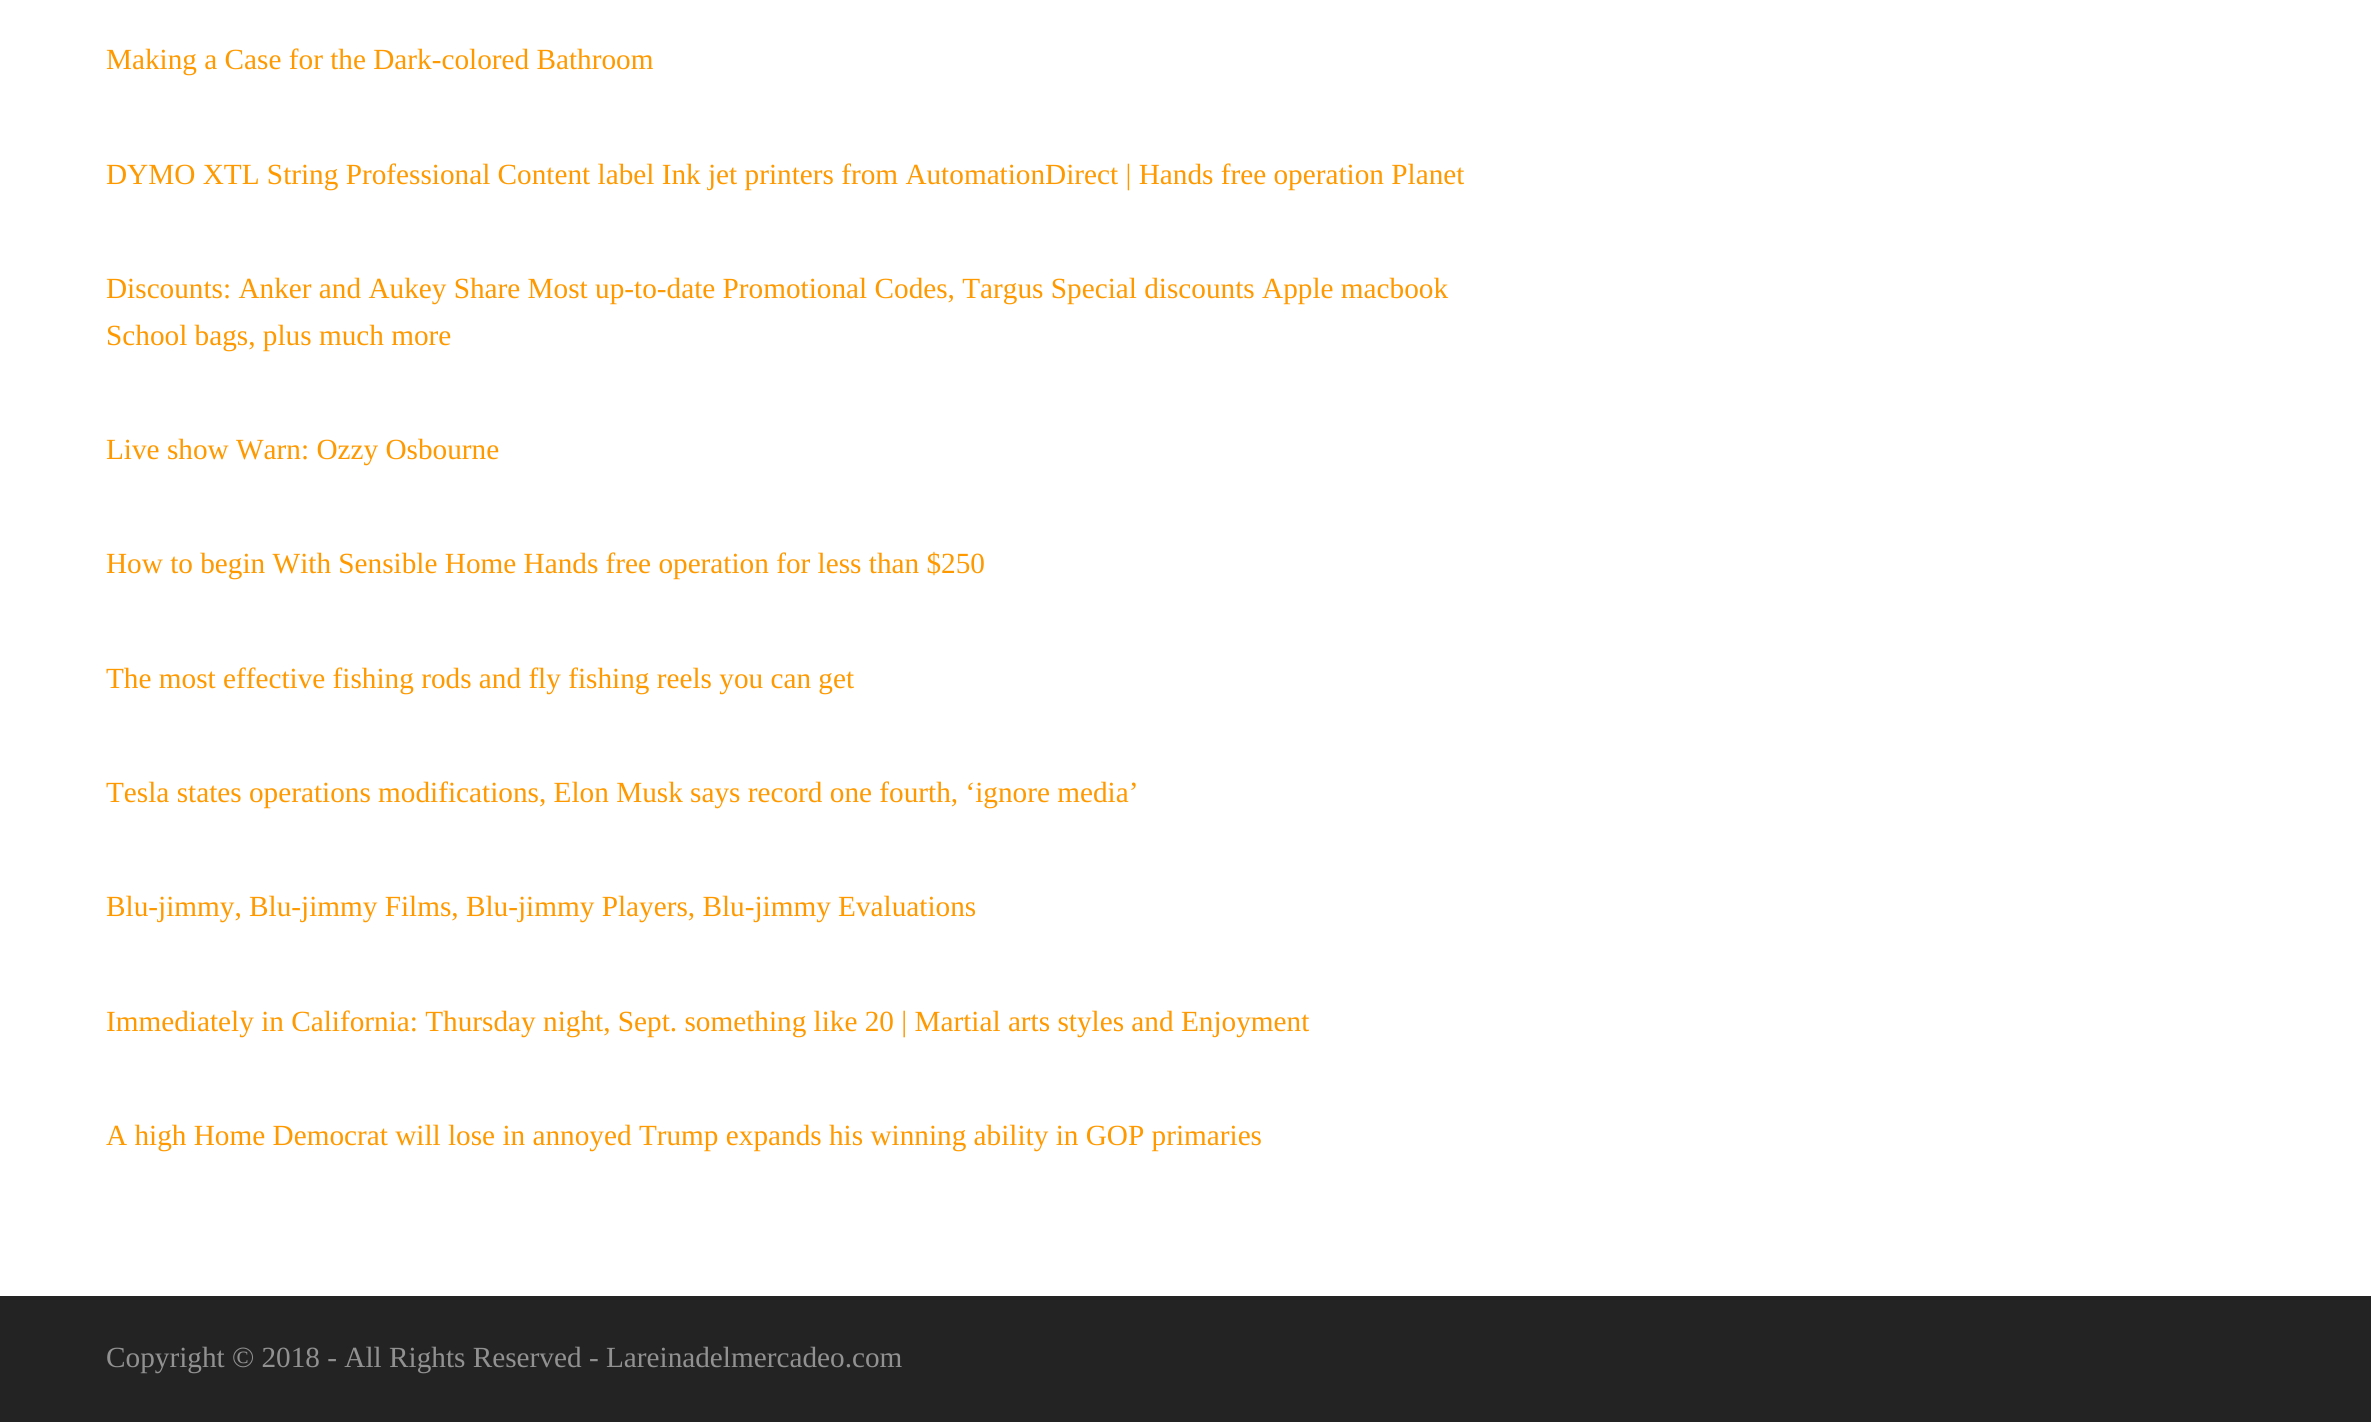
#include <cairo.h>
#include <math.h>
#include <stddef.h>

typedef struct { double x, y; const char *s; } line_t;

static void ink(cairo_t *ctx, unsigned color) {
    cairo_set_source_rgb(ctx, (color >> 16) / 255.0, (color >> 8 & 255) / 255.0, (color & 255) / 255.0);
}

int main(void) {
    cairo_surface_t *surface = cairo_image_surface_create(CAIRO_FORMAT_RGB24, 2371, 1422);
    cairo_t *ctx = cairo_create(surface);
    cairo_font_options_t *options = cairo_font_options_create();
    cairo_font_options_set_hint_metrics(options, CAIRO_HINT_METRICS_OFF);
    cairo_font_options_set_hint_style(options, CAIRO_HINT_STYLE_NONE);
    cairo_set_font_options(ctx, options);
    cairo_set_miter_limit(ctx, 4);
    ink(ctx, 0x232323);
    cairo_paint(ctx);
    ink(ctx, 0xFFFFFF);
    cairo_rectangle(ctx, 0, 0, 2371, 1296);
    cairo_fill(ctx);
    cairo_select_font_face(ctx, "Liberation Serif", CAIRO_FONT_SLANT_NORMAL, CAIRO_FONT_WEIGHT_NORMAL);
    cairo_set_font_size(ctx, 29.25);
    ink(ctx, 0xFF9900);
    {
        static const line_t items[] = {
            {106, 69, "Making a Case for the Dark-colored Bathroom"},
            {106, 184, "DYMO XTL String Professional Content label Ink jet printers from AutomationDirect | Hands free operation Planet"},
            {106, 298, "Discounts: Anker and Aukey Share Most up-to-date Promotional Codes, Targus Special discounts Apple macbook"},
            {106, 345, "School bags, plus much more"},
            {106, 459, "Live show Warn: Ozzy Osbourne"},
            {106, 573, "How to begin With Sensible Home Hands free operation for less than $250"},
            {106, 688, "The most effective fishing rods and fly fishing reels you can get"},
            {106, 802, "Tesla states operations modifications, Elon Musk says record one fourth, ‘ignore media’"},
            {106, 916, "Blu-jimmy, Blu-jimmy Films, Blu-jimmy Players, Blu-jimmy Evaluations"},
            {106, 1031, "Immediately in California: Thursday night, Sept. something like 20 | Martial arts styles and Enjoyment"},
            {106, 1145, "A high Home Democrat will lose in annoyed Trump expands his winning ability in GOP primaries"},
        };
        for (size_t i = 0; i < sizeof items / sizeof *items; i++) {
            cairo_move_to(ctx, items[i].x, items[i].y);
            cairo_show_text(ctx, items[i].s);
        }
    }
    ink(ctx, 0x919191);
    cairo_move_to(ctx, 106, 1367);
    cairo_show_text(ctx, "Copyright © 2018 - All Rights Reserved - Lareinadelmercadeo.com");
    cairo_surface_write_to_png(surface, "image.png");
    cairo_font_options_destroy(options);
    cairo_destroy(ctx);
    cairo_surface_destroy(surface);
    return 0;
}
